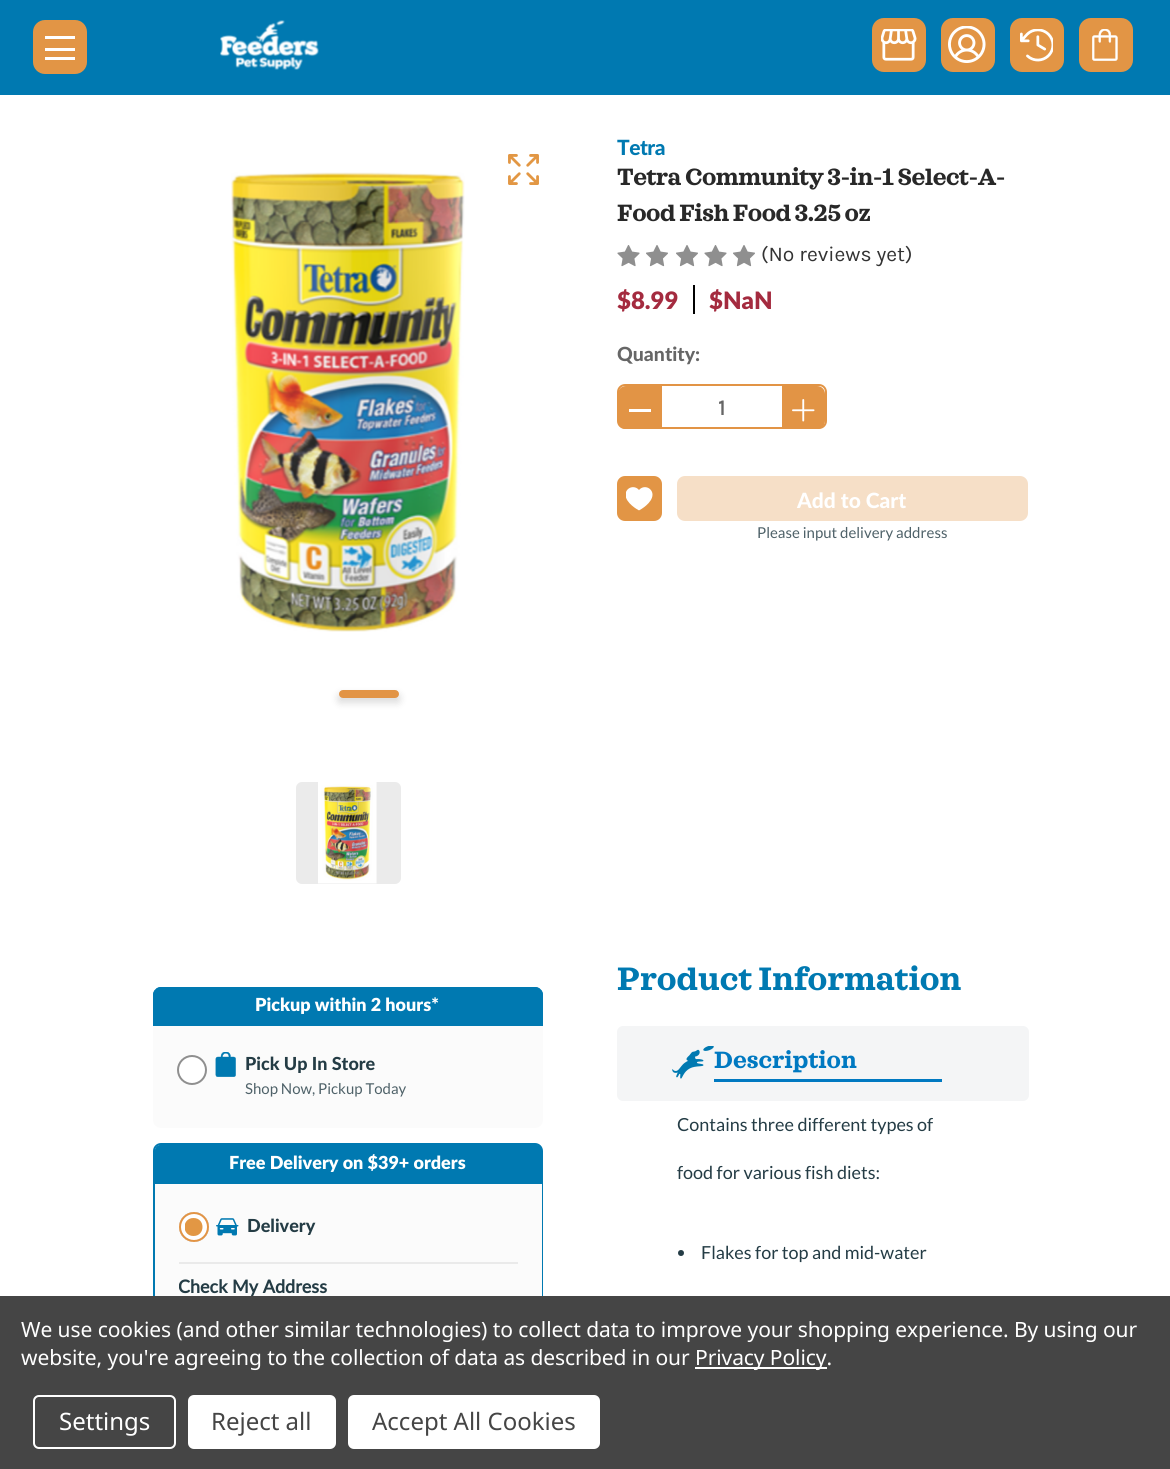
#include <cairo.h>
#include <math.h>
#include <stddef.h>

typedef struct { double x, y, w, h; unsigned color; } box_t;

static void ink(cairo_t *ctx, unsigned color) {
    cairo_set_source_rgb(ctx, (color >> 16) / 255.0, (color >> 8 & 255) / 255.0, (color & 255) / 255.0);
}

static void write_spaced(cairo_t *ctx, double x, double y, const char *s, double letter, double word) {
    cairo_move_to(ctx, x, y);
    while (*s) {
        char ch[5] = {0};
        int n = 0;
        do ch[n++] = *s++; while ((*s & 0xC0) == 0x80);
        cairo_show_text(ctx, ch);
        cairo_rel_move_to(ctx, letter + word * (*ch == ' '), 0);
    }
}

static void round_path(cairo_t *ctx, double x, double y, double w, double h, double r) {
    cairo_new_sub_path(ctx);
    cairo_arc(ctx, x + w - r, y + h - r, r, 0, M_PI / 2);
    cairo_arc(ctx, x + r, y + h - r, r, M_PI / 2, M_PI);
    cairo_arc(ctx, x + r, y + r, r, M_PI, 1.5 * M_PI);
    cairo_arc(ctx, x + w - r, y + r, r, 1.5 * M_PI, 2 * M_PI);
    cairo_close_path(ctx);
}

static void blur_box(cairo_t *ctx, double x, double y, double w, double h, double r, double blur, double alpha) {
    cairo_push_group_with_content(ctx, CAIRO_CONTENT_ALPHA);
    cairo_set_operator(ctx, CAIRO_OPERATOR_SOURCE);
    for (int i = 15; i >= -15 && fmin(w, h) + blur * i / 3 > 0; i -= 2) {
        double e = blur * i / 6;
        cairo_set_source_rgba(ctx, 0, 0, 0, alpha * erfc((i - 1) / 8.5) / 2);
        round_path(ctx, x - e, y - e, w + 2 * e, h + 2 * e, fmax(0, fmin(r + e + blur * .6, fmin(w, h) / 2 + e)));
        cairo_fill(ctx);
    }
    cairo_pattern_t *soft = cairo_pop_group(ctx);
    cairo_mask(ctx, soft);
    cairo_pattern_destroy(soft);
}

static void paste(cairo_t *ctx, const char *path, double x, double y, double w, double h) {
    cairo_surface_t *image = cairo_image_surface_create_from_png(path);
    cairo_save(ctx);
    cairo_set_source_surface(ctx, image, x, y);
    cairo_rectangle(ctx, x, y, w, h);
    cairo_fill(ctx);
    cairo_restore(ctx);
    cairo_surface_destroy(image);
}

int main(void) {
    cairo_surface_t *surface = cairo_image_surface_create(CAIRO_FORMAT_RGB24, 1170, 1469);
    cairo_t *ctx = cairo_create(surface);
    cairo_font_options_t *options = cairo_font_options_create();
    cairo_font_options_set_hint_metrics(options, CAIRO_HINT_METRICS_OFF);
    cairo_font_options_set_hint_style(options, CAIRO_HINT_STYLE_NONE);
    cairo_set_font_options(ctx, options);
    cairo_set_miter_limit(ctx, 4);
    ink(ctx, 0xFFFFFF);
    cairo_paint(ctx);
    ink(ctx, 0x0079B1);
    cairo_rectangle(ctx, 0, 0, 1170, 95);
    cairo_fill(ctx);
    ink(ctx, 0xE29545);
    round_path(ctx, 33, 20, 54, 54, 12);
    cairo_fill(ctx);
    {
        static const box_t items[] = {
            {45, 48, 30, 3, 0xFFFFFF},
            {45, 36, 30, 3, 0xFFFFFF},
            {45, 57, 30, 3, 0xFFFFFF},
        };
        for (size_t i = 0; i < sizeof items / sizeof *items; i++) {
            ink(ctx, items[i].color);
            cairo_rectangle(ctx, items[i].x, items[i].y, items[i].w, items[i].h);
            cairo_fill(ctx);
        }
    }
    paste(ctx, "media/1.png", 220, 20, 99, 50);
    ink(ctx, 0xE29545);
    round_path(ctx, 872, 18, 54, 54, 12);
    cairo_fill(ctx);
    paste(ctx, "media/2.png", 881, 29, 36, 32);
    round_path(ctx, 941, 18, 54, 54, 12);
    cairo_fill(ctx);
    paste(ctx, "media/3.png", 948, 26, 38, 37);
    round_path(ctx, 1010, 18, 54, 54, 12);
    cairo_fill(ctx);
    paste(ctx, "media/4.png", 1020, 29, 33, 33);
    round_path(ctx, 1079, 18, 54, 54, 12);
    cairo_fill(ctx);
    paste(ctx, "media/5.png", 1092, 29, 26, 32);
    paste(ctx, "media/6.png", 231, 172, 234, 460);
    paste(ctx, "media/7.png", 508, 154, 31, 31);
    ink(ctx, 0x000000);
    blur_box(ctx, 339, 695, 60, 7, 3.5, 4.5, 0.16);
    ink(ctx, 0xE29445);
    round_path(ctx, 340, 691, 58, 6, 3);
    cairo_fill_preserve(ctx);
    cairo_stroke(ctx);
    ink(ctx, 0xEBEBEB);
    round_path(ctx, 296, 782, 105, 102, 6);
    cairo_fill(ctx);
    paste(ctx, "media/8.png", 318, 782, 59, 102);
    cairo_select_font_face(ctx, "Lato Black", CAIRO_FONT_SLANT_NORMAL, CAIRO_FONT_WEIGHT_NORMAL);
    cairo_set_font_size(ctx, 21);
    ink(ctx, 0x0079B1);
    write_spaced(ctx, 617, 155, "Tetra", -0.5, 0);
    cairo_select_font_face(ctx, "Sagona", CAIRO_FONT_SLANT_NORMAL, CAIRO_FONT_WEIGHT_BOLD);
    cairo_set_font_size(ctx, 24);
    ink(ctx, 0x282828);
    write_spaced(ctx, 617, 185, "Tetra Community 3-in-1 Select-A-", -0.5, 0);
    write_spaced(ctx, 617, 221, "Food Fish Food 3.25 oz", -0.5, 0);
    paste(ctx, "media/9.png", 617, 245, 23, 22);
    paste(ctx, "media/10.png", 646, 245, 22, 22);
    paste(ctx, "media/10.png", 676, 245, 22, 22);
    paste(ctx, "media/9.png", 704, 245, 23, 22);
    paste(ctx, "media/10.png", 733, 245, 22, 22);
    cairo_select_font_face(ctx, "Karla", CAIRO_FONT_SLANT_NORMAL, CAIRO_FONT_WEIGHT_NORMAL);
    cairo_set_font_size(ctx, 21);
    ink(ctx, 0x333333);
    cairo_move_to(ctx, 761, 261);
    cairo_show_text(ctx, "(No reviews yet)");
    cairo_select_font_face(ctx, "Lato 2 Black", CAIRO_FONT_SLANT_NORMAL, CAIRO_FONT_WEIGHT_NORMAL);
    cairo_set_font_size(ctx, 24);
    ink(ctx, 0xA42B3F);
    cairo_move_to(ctx, 617, 309);
    cairo_show_text(ctx, "$8.99");
    ink(ctx, 0x000000);
    cairo_rectangle(ctx, 693, 285, 2, 29);
    cairo_fill(ctx);
    ink(ctx, 0xA42B3F);
    cairo_move_to(ctx, 709, 309);
    cairo_show_text(ctx, "$NaN");
    cairo_select_font_face(ctx, "Lato Black", CAIRO_FONT_SLANT_NORMAL, CAIRO_FONT_WEIGHT_NORMAL);
    cairo_set_font_size(ctx, 19.5);
    ink(ctx, 0x666666);
    cairo_move_to(ctx, 617, 361);
    cairo_show_text(ctx, "Quantity:");
    round_path(ctx, 618, 385, 208, 43, 7);
    ink(ctx, 0xE29445);
    cairo_stroke(ctx);
    cairo_new_path(ctx);
    cairo_move_to(ctx, 626, 387);
    cairo_line_to(ctx, 661, 387);
    cairo_line_to(ctx, 661, 428);
    cairo_line_to(ctx, 626, 428);
    cairo_curve_to(ctx, 622, 428, 619, 425, 619, 421);
    cairo_line_to(ctx, 619, 394);
    cairo_curve_to(ctx, 619, 390, 622, 387, 626, 387);
    cairo_close_path(ctx);
    cairo_fill_preserve(ctx);
    cairo_stroke(ctx);
    ink(ctx, 0xFFFFFF);
    cairo_rectangle(ctx, 629, 409, 22, 3);
    cairo_fill(ctx);
    cairo_select_font_face(ctx, "Karla", CAIRO_FONT_SLANT_NORMAL, CAIRO_FONT_WEIGHT_BOLD);
    cairo_set_font_size(ctx, 22);
    ink(ctx, 0x666666);
    cairo_move_to(ctx, 718, 415);
    cairo_show_text(ctx, "1");
    ink(ctx, 0xE29445);
    cairo_new_path(ctx);
    cairo_move_to(ctx, 783, 387);
    cairo_line_to(ctx, 817, 387);
    cairo_curve_to(ctx, 821, 387, 824, 390, 824, 394);
    cairo_line_to(ctx, 824, 421);
    cairo_curve_to(ctx, 824, 425, 821, 428, 817, 428);
    cairo_line_to(ctx, 783, 428);
    cairo_close_path(ctx);
    cairo_fill_preserve(ctx);
    cairo_stroke(ctx);
    paste(ctx, "media/11.png", 792, 399, 23, 23);
    ink(ctx, 0xE29545);
    round_path(ctx, 618, 477, 43, 43, 7);
    cairo_fill_preserve(ctx);
    cairo_stroke(ctx);
    paste(ctx, "media/12.png", 626, 487, 27, 24);
    ink(ctx, 0xF6DFC7);
    round_path(ctx, 678, 477, 349, 43, 7);
    cairo_fill_preserve(ctx);
    cairo_stroke(ctx);
    cairo_select_font_face(ctx, "Lato Black", CAIRO_FONT_SLANT_NORMAL, CAIRO_FONT_WEIGHT_NORMAL);
    cairo_set_font_size(ctx, 21);
    ink(ctx, 0xFFFFFF);
    cairo_move_to(ctx, 797, 508);
    cairo_show_text(ctx, "Add to Cart");
    cairo_select_font_face(ctx, "Lato", CAIRO_FONT_SLANT_NORMAL, CAIRO_FONT_WEIGHT_NORMAL);
    cairo_set_font_size(ctx, 15);
    ink(ctx, 0x4F6269);
    cairo_move_to(ctx, 757, 538);
    cairo_show_text(ctx, "Please input delivery address");
    ink(ctx, 0x0079B1);
    cairo_new_path(ctx);
    cairo_move_to(ctx, 161, 987);
    cairo_line_to(ctx, 535, 987);
    cairo_curve_to(ctx, 539.5, 987, 543, 990.5, 543, 995);
    cairo_line_to(ctx, 543, 1026);
    cairo_line_to(ctx, 153, 1026);
    cairo_line_to(ctx, 153, 995);
    cairo_curve_to(ctx, 153, 990.5, 156.5, 987, 161, 987);
    cairo_close_path(ctx);
    cairo_fill(ctx);
    cairo_set_fill_rule(ctx, CAIRO_FILL_RULE_EVEN_ODD);
    cairo_new_path(ctx);
    cairo_move_to(ctx, 153, 995);
    cairo_line_to(ctx, 153, 1026);
    cairo_line_to(ctx, 543, 1026);
    cairo_line_to(ctx, 543, 995);
    cairo_curve_to(ctx, 543, 993, 542, 991, 541, 990);
    cairo_line_to(ctx, 541, 1024);
    cairo_line_to(ctx, 155, 1024);
    cairo_line_to(ctx, 155, 990);
    cairo_curve_to(ctx, 154, 991, 153, 993, 153, 995);
    cairo_close_path(ctx);
    cairo_move_to(ctx, 161, 987);
    cairo_curve_to(ctx, 159, 987, 157, 988, 156, 989);
    cairo_line_to(ctx, 540, 989);
    cairo_curve_to(ctx, 539, 988, 537, 987, 535, 987);
    cairo_close_path(ctx);
    cairo_fill(ctx);
    cairo_select_font_face(ctx, "Lato 2 Black", CAIRO_FONT_SLANT_NORMAL, CAIRO_FONT_WEIGHT_NORMAL);
    cairo_set_font_size(ctx, 18);
    ink(ctx, 0xFFFFFF);
    cairo_move_to(ctx, 255, 1011);
    cairo_show_text(ctx, "Pickup within 2 hours*");
    ink(ctx, 0xFBFBFB);
    cairo_new_path(ctx);
    cairo_move_to(ctx, 153, 1026);
    cairo_line_to(ctx, 543, 1026);
    cairo_line_to(ctx, 543, 1120);
    cairo_curve_to(ctx, 543, 1124.5, 539.5, 1128, 535, 1128);
    cairo_line_to(ctx, 161, 1128);
    cairo_curve_to(ctx, 156.5, 1128, 153, 1124.5, 153, 1120);
    cairo_close_path(ctx);
    cairo_fill(ctx);
    ink(ctx, 0xFFFFFF);
    cairo_arc(ctx, 192, 1070, 14, 0, 2 * M_PI);
    cairo_fill_preserve(ctx);
    ink(ctx, 0x8F8F8F);
    cairo_stroke(ctx);
    paste(ctx, "media/13.png", 215, 1052, 21, 25);
    cairo_select_font_face(ctx, "Lato Black", CAIRO_FONT_SLANT_NORMAL, CAIRO_FONT_WEIGHT_NORMAL);
    ink(ctx, 0x243C45);
    cairo_move_to(ctx, 245, 1070);
    cairo_show_text(ctx, "Pick Up In Store");
    cairo_select_font_face(ctx, "Lato", CAIRO_FONT_SLANT_NORMAL, CAIRO_FONT_WEIGHT_NORMAL);
    cairo_set_font_size(ctx, 15);
    ink(ctx, 0x4F6269);
    cairo_move_to(ctx, 245, 1094);
    cairo_show_text(ctx, "Shop Now, Pickup Today");
    round_path(ctx, 154, 1144, 388, 288, 7);
    ink(ctx, 0x0079B1);
    cairo_stroke(ctx);
    cairo_new_path(ctx);
    cairo_move_to(ctx, 161, 1145);
    cairo_line_to(ctx, 536, 1145);
    cairo_curve_to(ctx, 539.5, 1145, 542, 1147.5, 542, 1151);
    cairo_line_to(ctx, 542, 1184);
    cairo_line_to(ctx, 155, 1184);
    cairo_line_to(ctx, 155, 1151);
    cairo_curve_to(ctx, 155, 1147.5, 157.5, 1145, 161, 1145);
    cairo_close_path(ctx);
    cairo_fill(ctx);
    cairo_new_path(ctx);
    cairo_move_to(ctx, 161, 1145);
    cairo_curve_to(ctx, 158, 1145, 155, 1148, 155, 1151);
    cairo_line_to(ctx, 155, 1184);
    cairo_line_to(ctx, 542, 1184);
    cairo_line_to(ctx, 542, 1151);
    cairo_curve_to(ctx, 542, 1148, 539, 1145, 536, 1145);
    cairo_close_path(ctx);
    cairo_move_to(ctx, 157, 1147);
    cairo_line_to(ctx, 157, 1182);
    cairo_line_to(ctx, 540, 1182);
    cairo_line_to(ctx, 540, 1147);
    cairo_close_path(ctx);
    cairo_fill(ctx);
    cairo_select_font_face(ctx, "Lato 2 Black", CAIRO_FONT_SLANT_NORMAL, CAIRO_FONT_WEIGHT_NORMAL);
    cairo_set_font_size(ctx, 18);
    ink(ctx, 0xFFFFFF);
    cairo_move_to(ctx, 229, 1169);
    cairo_show_text(ctx, "Free Delivery on $39+ orders");
    ink(ctx, 0xFBFBFB);
    cairo_rectangle(ctx, 155, 1184, 387, 112);
    cairo_fill(ctx);
    cairo_arc(ctx, 194, 1227, 14, 0, 2 * M_PI);
    ink(ctx, 0x8F8F8F);
    cairo_stroke(ctx);
    ink(ctx, 0xFFFFFF);
    cairo_arc(ctx, 194, 1227, 15, 0, 2 * M_PI);
    cairo_fill(ctx);
    cairo_save(ctx);
    cairo_set_fill_rule(ctx, CAIRO_FILL_RULE_WINDING);
    cairo_rectangle(ctx, 185, 1218, 18, 18);
    cairo_clip(ctx);
    ink(ctx, 0xE29744);
    cairo_new_path(ctx);
    cairo_move_to(ctx, 193.5, 1236);
    cairo_curve_to(ctx, 205.5, 1236, 205.5, 1218, 193.5, 1218);
    cairo_curve_to(ctx, 181.5, 1218, 181.5, 1236, 193.5, 1236);
    cairo_close_path(ctx);
    cairo_fill(ctx);
    cairo_restore(ctx);
    cairo_arc(ctx, 194, 1227, 14, 0, 2 * M_PI);
    ink(ctx, 0xE29445);
    cairo_stroke(ctx);
    paste(ctx, "media/14.png", 216, 1218, 23, 18);
    cairo_select_font_face(ctx, "Lato Black", CAIRO_FONT_SLANT_NORMAL, CAIRO_FONT_WEIGHT_NORMAL);
    ink(ctx, 0x243C45);
    cairo_move_to(ctx, 247, 1232);
    cairo_show_text(ctx, "Delivery");
    ink(ctx, 0xEAEAEA);
    cairo_rectangle(ctx, 179, 1262, 339, 2);
    cairo_fill(ctx);
    cairo_save(ctx);
    cairo_set_fill_rule(ctx, CAIRO_FILL_RULE_WINDING);
    cairo_rectangle(ctx, 179, 1263, 339, 144);
    cairo_clip(ctx);
    cairo_select_font_face(ctx, "Lato", CAIRO_FONT_SLANT_NORMAL, CAIRO_FONT_WEIGHT_BOLD);
    ink(ctx, 0x243C45);
    cairo_move_to(ctx, 178, 1293);
    cairo_show_text(ctx, "Check My Address");
    cairo_restore(ctx);
    cairo_select_font_face(ctx, "Sagona", CAIRO_FONT_SLANT_NORMAL, CAIRO_FONT_WEIGHT_BOLD);
    cairo_set_font_size(ctx, 33);
    ink(ctx, 0x0079B1);
    cairo_move_to(ctx, 617, 990);
    cairo_show_text(ctx, "Product Information");
    ink(ctx, 0xF4F5F6);
    round_path(ctx, 617, 1026, 412, 75, 6);
    cairo_fill(ctx);
    paste(ctx, "media/15.png", 672, 1046, 42, 33);
    ink(ctx, 0x0079C1);
    cairo_rectangle(ctx, 714, 1079, 228, 3);
    cairo_fill(ctx);
    cairo_set_font_size(ctx, 24);
    cairo_move_to(ctx, 714, 1068);
    cairo_show_text(ctx, "Description");
    cairo_select_font_face(ctx, "Lato", CAIRO_FONT_SLANT_NORMAL, CAIRO_FONT_WEIGHT_NORMAL);
    cairo_set_font_size(ctx, 18);
    ink(ctx, 0x243C45);
    cairo_move_to(ctx, 677, 1131);
    cairo_show_text(ctx, "Contains three different types of");
    cairo_move_to(ctx, 677, 1179);
    cairo_show_text(ctx, "food for various fish diets:");
    cairo_new_path(ctx);
    cairo_arc(ctx, 681, 1253, 3, 0, 2 * M_PI);
    cairo_fill(ctx);
    cairo_move_to(ctx, 701, 1259);
    cairo_show_text(ctx, "Flakes for top and mid-water");
    ink(ctx, 0x454545);
    cairo_rectangle(ctx, 0, 1296, 1170, 173);
    cairo_fill(ctx);
    cairo_select_font_face(ctx, "Noto Sans", CAIRO_FONT_SLANT_NORMAL, CAIRO_FONT_WEIGHT_NORMAL);
    cairo_set_font_size(ctx, 21);
    ink(ctx, 0xFFFFFF);
    write_spaced(ctx, 21, 1337, "We use cookies (and other similar technologies) to collect data to improve your shopping experience. By using our", -0.08, 0);
    write_spaced(ctx, 21, 1365, "website, you're agreeing to the collection of data as described in our", -0.08, 0);
    cairo_rectangle(ctx, 695, 1367, 132, 2);
    cairo_fill(ctx);
    write_spaced(ctx, 695, 1365, "Privacy Policy.", -0.08, 0);
    round_path(ctx, 34, 1396, 141, 52, 5);
    cairo_stroke(ctx);
    cairo_set_font_size(ctx, 24);
    cairo_move_to(ctx, 59, 1430);
    cairo_show_text(ctx, "Settings");
    round_path(ctx, 188, 1395, 148, 54, 6);
    cairo_fill(ctx);
    ink(ctx, 0x454545);
    cairo_move_to(ctx, 211, 1430);
    cairo_show_text(ctx, "Reject all");
    ink(ctx, 0xFFFFFF);
    round_path(ctx, 348, 1395, 252, 54, 6);
    cairo_fill(ctx);
    ink(ctx, 0x454545);
    cairo_move_to(ctx, 372, 1430);
    cairo_show_text(ctx, "Accept All Cookies");
    cairo_surface_write_to_png(surface, "image.png");
    cairo_font_options_destroy(options);
    cairo_destroy(ctx);
    cairo_surface_destroy(surface);
    return 0;
}
